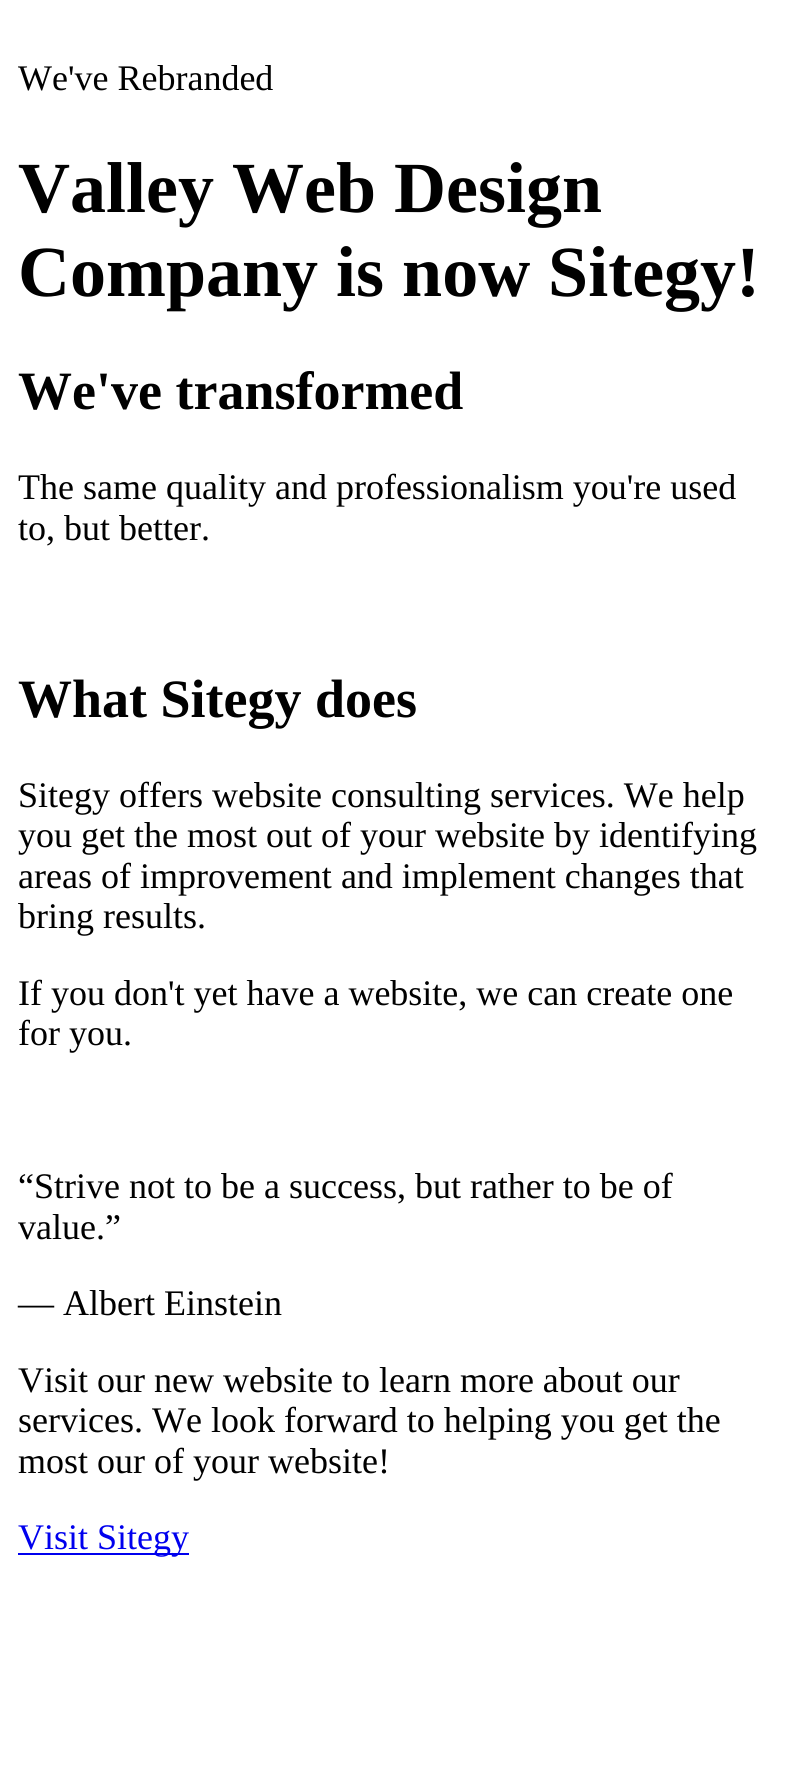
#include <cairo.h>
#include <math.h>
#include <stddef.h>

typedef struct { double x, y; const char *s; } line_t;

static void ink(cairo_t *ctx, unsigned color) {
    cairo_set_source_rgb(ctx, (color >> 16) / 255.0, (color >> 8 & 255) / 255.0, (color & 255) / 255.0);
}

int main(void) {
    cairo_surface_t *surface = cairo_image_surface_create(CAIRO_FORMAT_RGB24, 787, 1766);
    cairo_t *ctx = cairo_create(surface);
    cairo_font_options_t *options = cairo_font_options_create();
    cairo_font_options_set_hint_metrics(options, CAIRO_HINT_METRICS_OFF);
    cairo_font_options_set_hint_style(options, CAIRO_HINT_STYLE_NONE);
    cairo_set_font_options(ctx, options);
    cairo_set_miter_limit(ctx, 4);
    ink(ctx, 0xFFFFFF);
    cairo_paint(ctx);
    cairo_select_font_face(ctx, "Liberation Serif", CAIRO_FONT_SLANT_NORMAL, CAIRO_FONT_WEIGHT_NORMAL);
    cairo_set_font_size(ctx, 36);
    ink(ctx, 0x000000);
    cairo_move_to(ctx, 18, 90);
    cairo_show_text(ctx, "We've Rebranded");
    cairo_select_font_face(ctx, "Liberation Serif", CAIRO_FONT_SLANT_NORMAL, CAIRO_FONT_WEIGHT_BOLD);
    cairo_set_font_size(ctx, 72);
    cairo_move_to(ctx, 18, 212);
    cairo_show_text(ctx, "Valley Web Design");
    cairo_move_to(ctx, 18, 296);
    cairo_show_text(ctx, "Company is now Sitegy!");
    cairo_set_font_size(ctx, 54);
    cairo_move_to(ctx, 18, 409);
    cairo_show_text(ctx, "We've transformed");
    cairo_select_font_face(ctx, "Liberation Serif", CAIRO_FONT_SLANT_NORMAL, CAIRO_FONT_WEIGHT_NORMAL);
    cairo_set_font_size(ctx, 36);
    cairo_move_to(ctx, 18, 499);
    cairo_show_text(ctx, "The same quality and professionalism you're used");
    cairo_move_to(ctx, 18, 540);
    cairo_show_text(ctx, "to, but better.");
    cairo_select_font_face(ctx, "Liberation Serif", CAIRO_FONT_SLANT_NORMAL, CAIRO_FONT_WEIGHT_BOLD);
    cairo_set_font_size(ctx, 54);
    cairo_move_to(ctx, 18, 717);
    cairo_show_text(ctx, "What Sitegy does");
    cairo_select_font_face(ctx, "Liberation Serif", CAIRO_FONT_SLANT_NORMAL, CAIRO_FONT_WEIGHT_NORMAL);
    cairo_set_font_size(ctx, 36);
    {
        static const line_t items[] = {
            {18, 807, "Sitegy offers website consulting services. We help"},
            {18, 847, "you get the most out of your website by identifying"},
            {18, 888, "areas of improvement and implement changes that"},
            {18, 928, "bring results."},
            {18, 1005, "If you don't yet have a website, we can create one"},
            {18, 1045, "for you."},
            {18, 1198, "“Strive not to be a success, but rather to be of"},
            {18, 1239, "value.”"},
            {18, 1315, "— Albert Einstein"},
            {18, 1392, "Visit our new website to learn more about our"},
            {18, 1432, "services. We look forward to helping you get the"},
            {18, 1473, "most our of your website!"},
        };
        for (size_t i = 0; i < sizeof items / sizeof *items; i++) {
            cairo_move_to(ctx, items[i].x, items[i].y);
            cairo_show_text(ctx, items[i].s);
        }
    }
    ink(ctx, 0x0000EE);
    cairo_rectangle(ctx, 18, 1553, 171, 2);
    cairo_fill(ctx);
    cairo_move_to(ctx, 18, 1549);
    cairo_show_text(ctx, "Visit Sitegy");
    cairo_surface_write_to_png(surface, "image.png");
    cairo_font_options_destroy(options);
    cairo_destroy(ctx);
    cairo_surface_destroy(surface);
    return 0;
}
